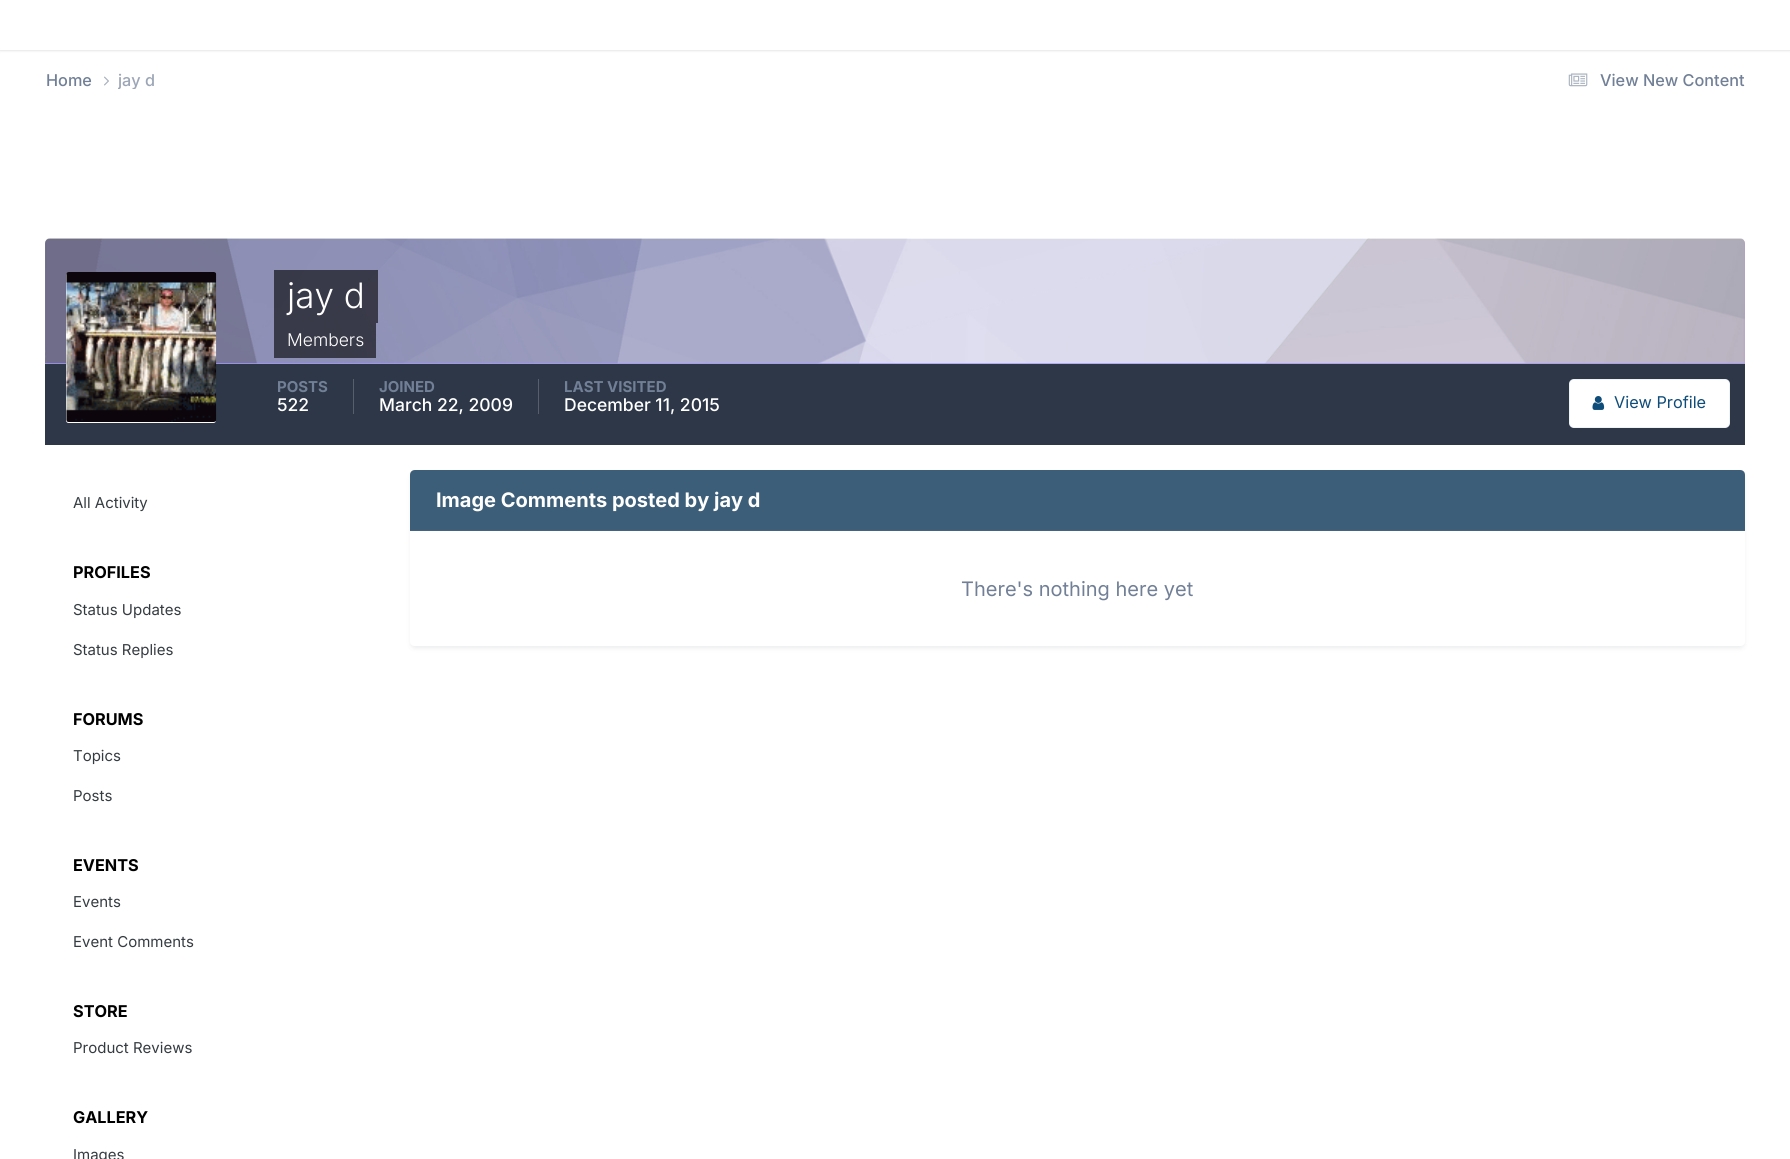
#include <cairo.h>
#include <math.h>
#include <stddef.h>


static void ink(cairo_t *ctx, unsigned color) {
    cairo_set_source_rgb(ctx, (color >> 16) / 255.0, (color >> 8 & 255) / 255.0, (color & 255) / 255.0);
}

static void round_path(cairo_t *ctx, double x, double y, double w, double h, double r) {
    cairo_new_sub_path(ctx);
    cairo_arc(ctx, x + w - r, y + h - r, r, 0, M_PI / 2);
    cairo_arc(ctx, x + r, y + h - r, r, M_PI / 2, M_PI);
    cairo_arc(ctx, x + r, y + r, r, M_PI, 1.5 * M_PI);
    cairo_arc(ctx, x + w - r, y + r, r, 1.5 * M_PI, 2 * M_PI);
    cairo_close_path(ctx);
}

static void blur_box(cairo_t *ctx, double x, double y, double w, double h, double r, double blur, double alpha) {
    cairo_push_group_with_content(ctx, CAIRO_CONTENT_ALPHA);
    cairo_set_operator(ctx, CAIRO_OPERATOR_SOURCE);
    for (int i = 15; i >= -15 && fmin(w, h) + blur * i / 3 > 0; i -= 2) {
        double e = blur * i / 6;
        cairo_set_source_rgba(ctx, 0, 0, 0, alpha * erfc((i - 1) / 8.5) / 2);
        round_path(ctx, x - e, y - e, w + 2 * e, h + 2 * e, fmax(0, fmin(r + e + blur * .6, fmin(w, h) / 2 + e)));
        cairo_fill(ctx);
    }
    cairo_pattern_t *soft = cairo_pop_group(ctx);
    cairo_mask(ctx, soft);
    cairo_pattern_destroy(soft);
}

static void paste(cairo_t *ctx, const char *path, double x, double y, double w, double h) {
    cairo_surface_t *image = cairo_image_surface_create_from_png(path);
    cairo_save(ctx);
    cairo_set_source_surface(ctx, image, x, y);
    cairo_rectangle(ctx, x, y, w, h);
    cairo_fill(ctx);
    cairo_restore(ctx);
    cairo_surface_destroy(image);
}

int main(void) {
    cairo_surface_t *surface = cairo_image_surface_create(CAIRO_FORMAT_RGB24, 1790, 1159);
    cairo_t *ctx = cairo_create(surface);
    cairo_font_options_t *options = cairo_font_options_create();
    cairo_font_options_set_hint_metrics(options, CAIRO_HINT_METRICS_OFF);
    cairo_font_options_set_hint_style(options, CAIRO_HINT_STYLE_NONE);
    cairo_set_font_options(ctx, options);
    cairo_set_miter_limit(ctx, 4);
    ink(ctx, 0xFFFFFF);
    cairo_paint(ctx);
    ink(ctx, 0x000000);
    blur_box(ctx, 0, -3, 1790, 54, 0, 1, 0.1);
    ink(ctx, 0xFFFFFF);
    cairo_rectangle(ctx, 0, 0, 1790, 50);
    cairo_fill(ctx);
    cairo_select_font_face(ctx, "Inter Medium", CAIRO_FONT_SLANT_NORMAL, CAIRO_FONT_WEIGHT_NORMAL);
    cairo_set_font_size(ctx, 16.25);
    ink(ctx, 0x718096);
    cairo_move_to(ctx, 46, 86);
    cairo_show_text(ctx, "Home");
    paste(ctx, "media/1.png", 104, 76, 5, 10);
    cairo_save(ctx);
    cairo_rectangle(ctx, 118, 71, 37, 18);
    cairo_clip(ctx);
    ink(ctx, 0x9CA6B6);
    cairo_move_to(ctx, 118, 86);
    cairo_show_text(ctx, "jay d");
    cairo_restore(ctx);
    paste(ctx, "media/2.png", 1568, 73, 20, 14);
    cairo_move_to(ctx, 1600, 86);
    cairo_show_text(ctx, "View New Content");
    ink(ctx, 0xA399FF);
    cairo_new_path(ctx);
    cairo_move_to(ctx, 50, 239);
    cairo_line_to(ctx, 1740, 239);
    cairo_curve_to(ctx, 1743, 239, 1745, 241, 1745, 244);
    cairo_line_to(ctx, 1745, 364);
    cairo_line_to(ctx, 45, 364);
    cairo_line_to(ctx, 45, 244);
    cairo_curve_to(ctx, 45, 241, 47, 239, 50, 239);
    cairo_close_path(ctx);
    cairo_fill(ctx);
    paste(ctx, "media/3.png", 45, 238, 1700, 126);
    ink(ctx, 0x2D3748);
    cairo_rectangle(ctx, 45, 364, 1700, 81);
    cairo_fill(ctx);
    ink(ctx, 0xFFFFFF);
    round_path(ctx, 66, 273, 150, 150, 2.5);
    cairo_fill(ctx);
    paste(ctx, "media/4.png", 66, 272, 151, 150);
    cairo_set_source_rgba(ctx, 0, 0, 0, 0.6);
    cairo_rectangle(ctx, 274, 270, 104, 53);
    cairo_fill(ctx);
    cairo_select_font_face(ctx, "Inter Light", CAIRO_FONT_SLANT_NORMAL, CAIRO_FONT_WEIGHT_NORMAL);
    cairo_set_font_size(ctx, 35);
    ink(ctx, 0xFFFFFF);
    cairo_move_to(ctx, 287, 308);
    cairo_show_text(ctx, "jay d");
    cairo_set_source_rgba(ctx, 0, 0, 0, 0.6);
    cairo_rectangle(ctx, 274, 323, 102, 35);
    cairo_fill(ctx);
    cairo_set_font_size(ctx, 17.5);
    ink(ctx, 0xFFFFFF);
    cairo_move_to(ctx, 287, 346);
    cairo_show_text(ctx, "Members");
    ink(ctx, 0x575F6D);
    cairo_rectangle(ctx, 353, 379, 1, 35);
    cairo_fill(ctx);
    cairo_select_font_face(ctx, "Inter", CAIRO_FONT_SLANT_NORMAL, CAIRO_FONT_WEIGHT_BOLD);
    cairo_set_font_size(ctx, 15);
    ink(ctx, 0x718096);
    cairo_move_to(ctx, 277, 392);
    cairo_show_text(ctx, "POSTS");
    cairo_select_font_face(ctx, "Inter Medium", CAIRO_FONT_SLANT_NORMAL, CAIRO_FONT_WEIGHT_NORMAL);
    cairo_set_font_size(ctx, 17.5);
    ink(ctx, 0xFFFFFF);
    cairo_move_to(ctx, 277, 411);
    cairo_show_text(ctx, "522");
    ink(ctx, 0x575F6D);
    cairo_rectangle(ctx, 538, 379, 1, 35);
    cairo_fill(ctx);
    cairo_select_font_face(ctx, "Inter", CAIRO_FONT_SLANT_NORMAL, CAIRO_FONT_WEIGHT_BOLD);
    cairo_set_font_size(ctx, 15);
    ink(ctx, 0x718096);
    cairo_move_to(ctx, 379, 392);
    cairo_show_text(ctx, "JOINED");
    cairo_select_font_face(ctx, "Inter Medium", CAIRO_FONT_SLANT_NORMAL, CAIRO_FONT_WEIGHT_NORMAL);
    cairo_set_font_size(ctx, 17.5);
    ink(ctx, 0xFFFFFF);
    cairo_move_to(ctx, 379, 411);
    cairo_show_text(ctx, "March 22, 2009");
    cairo_select_font_face(ctx, "Inter", CAIRO_FONT_SLANT_NORMAL, CAIRO_FONT_WEIGHT_BOLD);
    cairo_set_font_size(ctx, 15);
    ink(ctx, 0x718096);
    cairo_move_to(ctx, 564, 392);
    cairo_show_text(ctx, "LAST VISITED");
    cairo_select_font_face(ctx, "Inter Medium", CAIRO_FONT_SLANT_NORMAL, CAIRO_FONT_WEIGHT_NORMAL);
    cairo_set_font_size(ctx, 17.5);
    ink(ctx, 0xFFFFFF);
    cairo_move_to(ctx, 564, 411);
    cairo_show_text(ctx, "December 11, 2015");
    round_path(ctx, 1569, 379, 161, 49, 5);
    cairo_fill(ctx);
    round_path(ctx, 1569.5, 379.5, 160, 48, 4.5);
    cairo_set_source_rgba(ctx, 0.055, 0.298, 0.475, 0.07);
    cairo_set_line_width(ctx, 1);
    cairo_stroke(ctx);
    paste(ctx, "media/5.png", 1592, 396, 13, 14);
    cairo_select_font_face(ctx, "Inter", CAIRO_FONT_SLANT_NORMAL, CAIRO_FONT_WEIGHT_NORMAL);
    cairo_set_font_size(ctx, 16.25);
    ink(ctx, 0x0E4C79);
    cairo_move_to(ctx, 1614, 408);
    cairo_show_text(ctx, "View Profile");
    cairo_set_font_size(ctx, 15);
    ink(ctx, 0x353C41);
    cairo_move_to(ctx, 73, 508);
    cairo_show_text(ctx, "All Activity");
    cairo_select_font_face(ctx, "Inter", CAIRO_FONT_SLANT_NORMAL, CAIRO_FONT_WEIGHT_BOLD);
    cairo_set_font_size(ctx, 16.25);
    ink(ctx, 0x000000);
    cairo_move_to(ctx, 73, 578);
    cairo_show_text(ctx, "PROFILES");
    cairo_select_font_face(ctx, "Inter", CAIRO_FONT_SLANT_NORMAL, CAIRO_FONT_WEIGHT_NORMAL);
    cairo_set_font_size(ctx, 15);
    ink(ctx, 0x353C41);
    cairo_move_to(ctx, 73, 615);
    cairo_show_text(ctx, "Status Updates");
    cairo_move_to(ctx, 73, 655);
    cairo_show_text(ctx, "Status Replies");
    cairo_select_font_face(ctx, "Inter", CAIRO_FONT_SLANT_NORMAL, CAIRO_FONT_WEIGHT_BOLD);
    cairo_set_font_size(ctx, 16.25);
    ink(ctx, 0x000000);
    cairo_move_to(ctx, 73, 725);
    cairo_show_text(ctx, "FORUMS");
    cairo_select_font_face(ctx, "Inter", CAIRO_FONT_SLANT_NORMAL, CAIRO_FONT_WEIGHT_NORMAL);
    cairo_set_font_size(ctx, 15);
    ink(ctx, 0x353C41);
    cairo_move_to(ctx, 73, 761);
    cairo_show_text(ctx, "Topics");
    cairo_move_to(ctx, 73, 801);
    cairo_show_text(ctx, "Posts");
    cairo_select_font_face(ctx, "Inter", CAIRO_FONT_SLANT_NORMAL, CAIRO_FONT_WEIGHT_BOLD);
    cairo_set_font_size(ctx, 16.25);
    ink(ctx, 0x000000);
    cairo_move_to(ctx, 73, 871);
    cairo_show_text(ctx, "EVENTS");
    cairo_select_font_face(ctx, "Inter", CAIRO_FONT_SLANT_NORMAL, CAIRO_FONT_WEIGHT_NORMAL);
    cairo_set_font_size(ctx, 15);
    ink(ctx, 0x353C41);
    cairo_move_to(ctx, 73, 907);
    cairo_show_text(ctx, "Events");
    cairo_move_to(ctx, 73, 947);
    cairo_show_text(ctx, "Event Comments");
    cairo_select_font_face(ctx, "Inter", CAIRO_FONT_SLANT_NORMAL, CAIRO_FONT_WEIGHT_BOLD);
    cairo_set_font_size(ctx, 16.25);
    ink(ctx, 0x000000);
    cairo_move_to(ctx, 73, 1017);
    cairo_show_text(ctx, "STORE");
    cairo_select_font_face(ctx, "Inter", CAIRO_FONT_SLANT_NORMAL, CAIRO_FONT_WEIGHT_NORMAL);
    cairo_set_font_size(ctx, 15);
    ink(ctx, 0x353C41);
    cairo_move_to(ctx, 73, 1053);
    cairo_show_text(ctx, "Product Reviews");
    cairo_select_font_face(ctx, "Inter", CAIRO_FONT_SLANT_NORMAL, CAIRO_FONT_WEIGHT_BOLD);
    cairo_set_font_size(ctx, 16.25);
    ink(ctx, 0x000000);
    cairo_move_to(ctx, 73, 1123);
    cairo_show_text(ctx, "GALLERY");
    cairo_select_font_face(ctx, "Inter", CAIRO_FONT_SLANT_NORMAL, CAIRO_FONT_WEIGHT_NORMAL);
    cairo_set_font_size(ctx, 15);
    ink(ctx, 0x353C41);
    cairo_move_to(ctx, 73, 1160);
    cairo_show_text(ctx, "Images");
    cairo_save(ctx);
    cairo_set_fill_rule(ctx, CAIRO_FILL_RULE_EVEN_ODD);
    cairo_new_path(ctx);
    cairo_move_to(ctx, 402, 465);
    cairo_line_to(ctx, 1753, 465);
    cairo_line_to(ctx, 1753, 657);
    cairo_line_to(ctx, 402, 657);
    cairo_close_path(ctx);
    cairo_move_to(ctx, 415, 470);
    cairo_line_to(ctx, 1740, 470);
    cairo_curve_to(ctx, 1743, 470, 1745, 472, 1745, 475);
    cairo_line_to(ctx, 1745, 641);
    cairo_curve_to(ctx, 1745, 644, 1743, 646, 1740, 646);
    cairo_line_to(ctx, 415, 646);
    cairo_curve_to(ctx, 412, 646, 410, 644, 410, 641);
    cairo_line_to(ctx, 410, 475);
    cairo_curve_to(ctx, 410, 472, 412, 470, 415, 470);
    cairo_close_path(ctx);
    cairo_clip(ctx);
    ink(ctx, 0x2D3748);
    blur_box(ctx, 411, 474, 1333, 174, 4, 2.5, 0.1);
    cairo_restore(ctx);
    ink(ctx, 0x3D5E78);
    cairo_new_path(ctx);
    cairo_move_to(ctx, 415, 470);
    cairo_line_to(ctx, 1740, 470);
    cairo_curve_to(ctx, 1743, 470, 1745, 472, 1745, 475);
    cairo_line_to(ctx, 1745, 531);
    cairo_line_to(ctx, 410, 531);
    cairo_line_to(ctx, 410, 475);
    cairo_curve_to(ctx, 410, 472, 412, 470, 415, 470);
    cairo_close_path(ctx);
    cairo_fill(ctx);
    ink(ctx, 0x45637D);
    cairo_rectangle(ctx, 410, 530, 1335, 1);
    cairo_fill(ctx);
    cairo_select_font_face(ctx, "Inter", CAIRO_FONT_SLANT_NORMAL, CAIRO_FONT_WEIGHT_BOLD);
    cairo_set_font_size(ctx, 20);
    ink(ctx, 0xFFFFFF);
    cairo_move_to(ctx, 436, 507);
    cairo_show_text(ctx, "Image Comments posted by jay d");
    cairo_select_font_face(ctx, "Inter", CAIRO_FONT_SLANT_NORMAL, CAIRO_FONT_WEIGHT_NORMAL);
    ink(ctx, 0x718096);
    cairo_move_to(ctx, 961, 596);
    cairo_show_text(ctx, "There's nothing here yet");
    cairo_surface_write_to_png(surface, "image.png");
    cairo_font_options_destroy(options);
    cairo_destroy(ctx);
    cairo_surface_destroy(surface);
    return 0;
}
